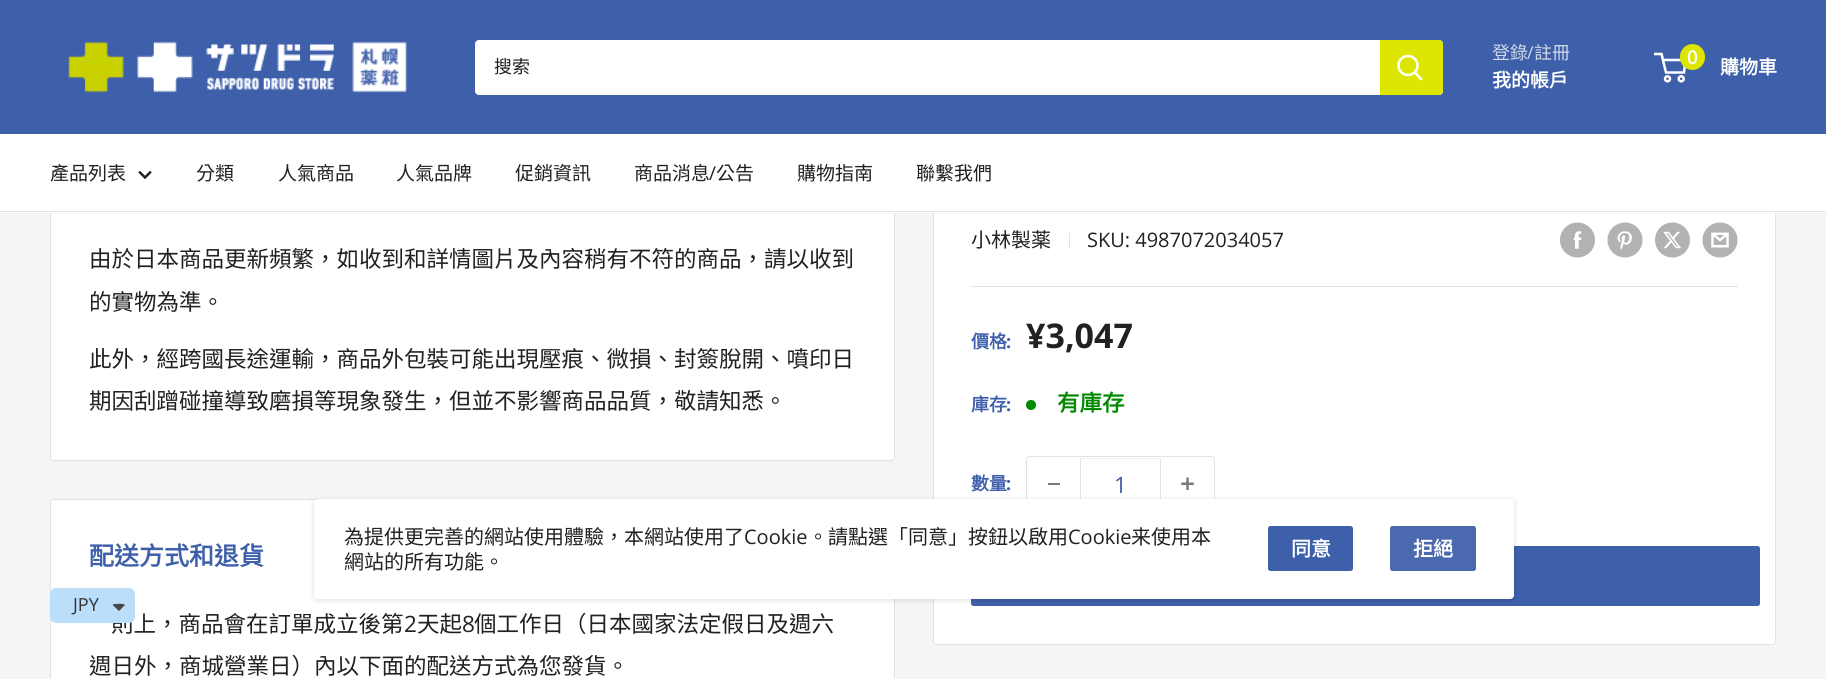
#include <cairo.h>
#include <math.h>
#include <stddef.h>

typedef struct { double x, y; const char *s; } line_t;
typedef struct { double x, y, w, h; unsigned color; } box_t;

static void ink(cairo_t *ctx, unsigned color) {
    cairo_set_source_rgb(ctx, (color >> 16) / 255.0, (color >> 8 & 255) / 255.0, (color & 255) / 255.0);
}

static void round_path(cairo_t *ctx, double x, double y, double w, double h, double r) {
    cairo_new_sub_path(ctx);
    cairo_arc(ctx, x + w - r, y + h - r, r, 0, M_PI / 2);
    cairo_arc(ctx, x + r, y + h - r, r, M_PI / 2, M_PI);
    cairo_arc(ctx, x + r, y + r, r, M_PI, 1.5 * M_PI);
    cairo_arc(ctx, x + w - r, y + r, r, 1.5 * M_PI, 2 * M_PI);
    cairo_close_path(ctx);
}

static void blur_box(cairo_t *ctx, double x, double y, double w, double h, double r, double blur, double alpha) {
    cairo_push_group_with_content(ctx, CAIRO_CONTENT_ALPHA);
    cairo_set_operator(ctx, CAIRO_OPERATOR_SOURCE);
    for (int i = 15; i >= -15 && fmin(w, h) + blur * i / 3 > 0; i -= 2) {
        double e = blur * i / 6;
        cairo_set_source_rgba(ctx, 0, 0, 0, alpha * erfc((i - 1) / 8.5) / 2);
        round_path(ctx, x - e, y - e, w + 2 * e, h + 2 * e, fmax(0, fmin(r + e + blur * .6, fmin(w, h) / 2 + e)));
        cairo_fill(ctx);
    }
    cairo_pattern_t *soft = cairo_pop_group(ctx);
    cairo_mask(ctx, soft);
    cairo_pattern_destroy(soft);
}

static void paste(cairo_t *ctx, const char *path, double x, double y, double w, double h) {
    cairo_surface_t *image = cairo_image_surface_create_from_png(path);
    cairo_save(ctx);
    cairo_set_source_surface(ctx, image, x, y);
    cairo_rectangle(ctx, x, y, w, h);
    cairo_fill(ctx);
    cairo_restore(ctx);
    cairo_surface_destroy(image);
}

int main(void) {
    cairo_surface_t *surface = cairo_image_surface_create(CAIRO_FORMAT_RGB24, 1826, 679);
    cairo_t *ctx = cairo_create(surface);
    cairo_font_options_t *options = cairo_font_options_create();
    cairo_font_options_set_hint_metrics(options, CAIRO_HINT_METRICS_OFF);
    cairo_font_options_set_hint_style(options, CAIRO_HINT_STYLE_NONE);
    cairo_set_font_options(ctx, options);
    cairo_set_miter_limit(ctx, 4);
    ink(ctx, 0xF3F5F6);
    cairo_paint(ctx);
    ink(ctx, 0xFFFFFF);
    round_path(ctx, 933.5, 120.5, 842, 524, 3.5);
    cairo_fill_preserve(ctx);
    ink(ctx, 0xE1E3E4);
    cairo_set_line_width(ctx, 1);
    cairo_stroke(ctx);
    ink(ctx, 0x3E5FAA);
    cairo_rectangle(ctx, 0, 0, 1826, 134);
    cairo_fill(ctx);
    paste(ctx, "media/1.png", 68, 41, 339, 52);
    ink(ctx, 0xFFFFFF);
    round_path(ctx, 475, 40, 968, 55, 4);
    cairo_fill(ctx);
    cairo_select_font_face(ctx, "Noto Sans CJK TC", CAIRO_FONT_SLANT_NORMAL, CAIRO_FONT_WEIGHT_NORMAL);
    cairo_set_font_size(ctx, 18);
    ink(ctx, 0x212121);
    cairo_move_to(ctx, 494, 73);
    cairo_show_text(ctx, "搜索");
    ink(ctx, 0xDCE600);
    cairo_new_path(ctx);
    cairo_move_to(ctx, 1380, 40);
    cairo_line_to(ctx, 1439, 40);
    cairo_curve_to(ctx, 1441, 40, 1443, 42, 1443, 44);
    cairo_line_to(ctx, 1443, 91);
    cairo_curve_to(ctx, 1443, 93, 1441, 95, 1439, 95);
    cairo_line_to(ctx, 1380, 95);
    cairo_close_path(ctx);
    cairo_fill(ctx);
    cairo_new_path(ctx);
    cairo_move_to(ctx, 1421, 79);
    cairo_line_to(ctx, 1415, 72.5);
    ink(ctx, 0xFFFFFF);
    cairo_set_line_width(ctx, 2.5);
    cairo_set_line_cap(ctx, CAIRO_LINE_CAP_SQUARE);
    cairo_stroke(ctx);
    cairo_arc(ctx, 1408, 65.5, 9.5, 0, 2 * M_PI);
    cairo_set_line_cap(ctx, CAIRO_LINE_CAP_BUTT);
    cairo_stroke(ctx);
    ink(ctx, 0xCFD7EA);
    cairo_move_to(ctx, 1492, 59);
    cairo_show_text(ctx, "登錄");
    cairo_select_font_face(ctx, "Open Sans", CAIRO_FONT_SLANT_NORMAL, CAIRO_FONT_WEIGHT_NORMAL);
    cairo_move_to(ctx, 1527, 59);
    cairo_show_text(ctx, "/");
    cairo_select_font_face(ctx, "Noto Sans CJK TC", CAIRO_FONT_SLANT_NORMAL, CAIRO_FONT_WEIGHT_NORMAL);
    cairo_move_to(ctx, 1534, 59);
    cairo_show_text(ctx, "註冊");
    cairo_select_font_face(ctx, "Noto Sans CJK TC", CAIRO_FONT_SLANT_NORMAL, CAIRO_FONT_WEIGHT_BOLD);
    cairo_set_font_size(ctx, 19);
    ink(ctx, 0xFFFFFF);
    cairo_move_to(ctx, 1492, 87);
    cairo_show_text(ctx, "我的帳戶");
    cairo_new_path(ctx);
    cairo_arc(ctx, 1667.5, 78.8, 2.5, 0, 2 * M_PI);
    cairo_stroke(ctx);
    cairo_arc(ctx, 1681.2, 78.8, 2.5, 0, 2 * M_PI);
    cairo_stroke(ctx);
    cairo_new_path(ctx);
    cairo_move_to(ctx, 1663, 60);
    cairo_line_to(ctx, 1685.5, 60);
    cairo_line_to(ctx, 1684, 72.5);
    cairo_line_to(ctx, 1666, 72.5);
    cairo_line_to(ctx, 1661.5, 54);
    cairo_line_to(ctx, 1654, 54);
    cairo_stroke(ctx);
    ink(ctx, 0xDCE600);
    round_path(ctx, 1680, 44, 25, 26, 12.5);
    cairo_fill(ctx);
    cairo_select_font_face(ctx, "Open Sans SemiBold", CAIRO_FONT_SLANT_NORMAL, CAIRO_FONT_WEIGHT_NORMAL);
    ink(ctx, 0xFFFFFF);
    cairo_move_to(ctx, 1687, 64);
    cairo_show_text(ctx, "0");
    cairo_select_font_face(ctx, "Noto Sans CJK TC", CAIRO_FONT_SLANT_NORMAL, CAIRO_FONT_WEIGHT_BOLD);
    cairo_move_to(ctx, 1720, 74);
    cairo_show_text(ctx, "購物車");
    round_path(ctx, 50.5, 135.5, 844, 325, 3.5);
    cairo_fill_preserve(ctx);
    ink(ctx, 0xE1E3E4);
    cairo_set_line_width(ctx, 1);
    cairo_stroke(ctx);
    ink(ctx, 0xFFFFFF);
    cairo_rectangle(ctx, 0, 134, 1826, 79);
    cairo_fill(ctx);
    ink(ctx, 0xE1E3E4);
    cairo_rectangle(ctx, 0, 211, 1826, 1);
    cairo_fill(ctx);
    cairo_select_font_face(ctx, "Noto Sans CJK TC", CAIRO_FONT_SLANT_NORMAL, CAIRO_FONT_WEIGHT_NORMAL);
    ink(ctx, 0x212121);
    cairo_move_to(ctx, 50, 180);
    cairo_show_text(ctx, "產品列表");
    cairo_new_path(ctx);
    cairo_move_to(ctx, 150, 172.5);
    cairo_line_to(ctx, 145, 177.5);
    cairo_line_to(ctx, 140, 172.5);
    cairo_set_line_width(ctx, 2.5);
    cairo_set_line_cap(ctx, CAIRO_LINE_CAP_SQUARE);
    cairo_stroke(ctx);
    {
        static const line_t items[] = {
            {196, 180, "分類"},
            {278, 180, "人氣商品"},
            {396, 180, "人氣品牌"},
            {515, 180, "促銷資訊"},
            {634, 180, "商品消息"},
        };
        for (size_t i = 0; i < sizeof items / sizeof *items; i++) {
            cairo_move_to(ctx, items[i].x, items[i].y);
            cairo_show_text(ctx, items[i].s);
        }
    }
    cairo_select_font_face(ctx, "Open Sans", CAIRO_FONT_SLANT_NORMAL, CAIRO_FONT_WEIGHT_NORMAL);
    cairo_move_to(ctx, 709, 180);
    cairo_show_text(ctx, "/");
    cairo_select_font_face(ctx, "Noto Sans CJK TC", CAIRO_FONT_SLANT_NORMAL, CAIRO_FONT_WEIGHT_NORMAL);
    {
        static const line_t items[] = {
            {716, 180, "公告"},
            {797, 180, "購物指南"},
            {916, 180, "聯繫我們"},
        };
        for (size_t i = 0; i < sizeof items / sizeof *items; i++) {
            cairo_move_to(ctx, items[i].x, items[i].y);
            cairo_show_text(ctx, items[i].s);
        }
    }
    cairo_set_font_size(ctx, 22.5);
    {
        static const line_t items[] = {
            {89, 267, "由於日本商品更新頻繁，如收到和詳情圖片及內容稍有不符的商品，請以收到"},
            {89, 310, "的實物為準。"},
            {89, 367, "此外，經跨國長途運輸，商品外包裝可能出現壓痕、微損、封簽脫開、噴印日"},
            {89, 409, "期因刮蹭碰撞導致磨損等現象發生，但並不影響商品品質，敬請知悉。"},
        };
        for (size_t i = 0; i < sizeof items / sizeof *items; i++) {
            cairo_move_to(ctx, items[i].x, items[i].y);
            cairo_show_text(ctx, items[i].s);
        }
    }
    cairo_set_font_size(ctx, 20);
    cairo_move_to(ctx, 971, 247);
    cairo_show_text(ctx, "小林製薬");
    ink(ctx, 0xE1E3E4);
    cairo_rectangle(ctx, 1069, 233, 1, 16);
    cairo_fill(ctx);
    cairo_select_font_face(ctx, "Open Sans", CAIRO_FONT_SLANT_NORMAL, CAIRO_FONT_WEIGHT_NORMAL);
    ink(ctx, 0x212121);
    cairo_move_to(ctx, 1087, 247);
    cairo_show_text(ctx, "SKU: 4987072034057");
    paste(ctx, "media/2.png", 1560, 222, 35, 36);
    paste(ctx, "media/3.png", 1607, 222, 36, 36);
    paste(ctx, "media/4.png", 1655, 222, 35, 36);
    paste(ctx, "media/5.png", 1702, 222, 36, 36);
    ink(ctx, 0xE1E3E4);
    cairo_rectangle(ctx, 971, 286, 767, 1);
    cairo_fill(ctx);
    cairo_select_font_face(ctx, "Noto Sans CJK TC", CAIRO_FONT_SLANT_NORMAL, CAIRO_FONT_WEIGHT_BOLD);
    cairo_set_font_size(ctx, 18);
    ink(ctx, 0x3E5FAA);
    cairo_move_to(ctx, 971, 348);
    cairo_show_text(ctx, "價格");
    cairo_select_font_face(ctx, "Open Sans", CAIRO_FONT_SLANT_NORMAL, CAIRO_FONT_WEIGHT_BOLD);
    cairo_move_to(ctx, 1006, 348);
    cairo_show_text(ctx, ":");
    cairo_set_font_size(ctx, 34);
    ink(ctx, 0x212121);
    cairo_move_to(ctx, 1026, 348);
    cairo_show_text(ctx, "¥3,047");
    cairo_select_font_face(ctx, "Noto Sans CJK TC", CAIRO_FONT_SLANT_NORMAL, CAIRO_FONT_WEIGHT_BOLD);
    cairo_set_font_size(ctx, 18);
    ink(ctx, 0x3E5FAA);
    cairo_move_to(ctx, 971, 411);
    cairo_show_text(ctx, "庫存");
    cairo_select_font_face(ctx, "Open Sans", CAIRO_FONT_SLANT_NORMAL, CAIRO_FONT_WEIGHT_BOLD);
    cairo_move_to(ctx, 1006, 411);
    cairo_show_text(ctx, ":");
    ink(ctx, 0x008A00);
    cairo_new_path(ctx);
    cairo_arc(ctx, 1031, 405, 5, 0, 2 * M_PI);
    cairo_fill(ctx);
    cairo_select_font_face(ctx, "Noto Sans CJK TC", CAIRO_FONT_SLANT_NORMAL, CAIRO_FONT_WEIGHT_BOLD);
    cairo_set_font_size(ctx, 22.5);
    cairo_move_to(ctx, 1057, 411);
    cairo_show_text(ctx, "有庫存");
    cairo_set_font_size(ctx, 18);
    ink(ctx, 0x3E5FAA);
    cairo_move_to(ctx, 971, 490);
    cairo_show_text(ctx, "數量");
    cairo_select_font_face(ctx, "Open Sans", CAIRO_FONT_SLANT_NORMAL, CAIRO_FONT_WEIGHT_BOLD);
    cairo_move_to(ctx, 1006, 490);
    cairo_show_text(ctx, ":");
    round_path(ctx, 1026.5, 456.5, 188, 54, 3.5);
    ink(ctx, 0xE1E3E4);
    cairo_set_line_width(ctx, 1);
    cairo_set_line_cap(ctx, CAIRO_LINE_CAP_BUTT);
    cairo_stroke(ctx);
    {
        static const box_t items[] = {
            {1048, 483, 12, 2, 0x7A7A7A},
            {1081, 458, 79, 1, 0xF3F4F4},
            {1160, 458, 1, 41, 0xE1E3E4},
            {1080, 458, 1, 41, 0xE1E3E4},
        };
        for (size_t i = 0; i < sizeof items / sizeof *items; i++) {
            ink(ctx, items[i].color);
            cairo_rectangle(ctx, items[i].x, items[i].y, items[i].w, items[i].h);
            cairo_fill(ctx);
        }
    }
    cairo_select_font_face(ctx, "Open Sans", CAIRO_FONT_SLANT_NORMAL, CAIRO_FONT_WEIGHT_NORMAL);
    cairo_set_font_size(ctx, 22.5);
    ink(ctx, 0x3E5FAA);
    cairo_move_to(ctx, 1114, 493);
    cairo_show_text(ctx, "1");
    paste(ctx, "media/6.png", 1181, 477, 13, 13);
    round_path(ctx, 971, 546, 789, 60, 2.5);
    cairo_fill(ctx);
    ink(ctx, 0xFFFFFF);
    round_path(ctx, 50.5, 499.5, 844, 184, 3.5);
    cairo_fill_preserve(ctx);
    ink(ctx, 0xE1E3E4);
    cairo_stroke(ctx);
    cairo_select_font_face(ctx, "Noto Sans CJK TC", CAIRO_FONT_SLANT_NORMAL, CAIRO_FONT_WEIGHT_BOLD);
    cairo_set_font_size(ctx, 25);
    ink(ctx, 0x3E5FAA);
    cairo_move_to(ctx, 89, 565);
    cairo_show_text(ctx, "配送方式和退貨");
    cairo_select_font_face(ctx, "Noto Sans CJK TC", CAIRO_FONT_SLANT_NORMAL, CAIRO_FONT_WEIGHT_NORMAL);
    cairo_set_font_size(ctx, 22.5);
    ink(ctx, 0x212121);
    cairo_move_to(ctx, 111, 632);
    cairo_show_text(ctx, "則上，商品會在訂單成立後第");
    cairo_select_font_face(ctx, "Open Sans", CAIRO_FONT_SLANT_NORMAL, CAIRO_FONT_WEIGHT_NORMAL);
    cairo_move_to(ctx, 404, 632);
    cairo_show_text(ctx, "2");
    cairo_select_font_face(ctx, "Noto Sans CJK TC", CAIRO_FONT_SLANT_NORMAL, CAIRO_FONT_WEIGHT_NORMAL);
    cairo_move_to(ctx, 417, 632);
    cairo_show_text(ctx, "天起");
    cairo_select_font_face(ctx, "Open Sans", CAIRO_FONT_SLANT_NORMAL, CAIRO_FONT_WEIGHT_NORMAL);
    cairo_move_to(ctx, 462, 632);
    cairo_show_text(ctx, "8");
    cairo_select_font_face(ctx, "Noto Sans CJK TC", CAIRO_FONT_SLANT_NORMAL, CAIRO_FONT_WEIGHT_NORMAL);
    cairo_move_to(ctx, 474, 632);
    cairo_show_text(ctx, "個工作日（日本國家法定假日及週六");
    cairo_move_to(ctx, 89, 674);
    cairo_show_text(ctx, "週日外，商城營業日）內以下面的配送方式為您發貨。");
    ink(ctx, 0x000000);
    blur_box(ctx, 313, 499, 1202, 102, 5, 2.5, 0.1);
    ink(ctx, 0xFFFFFF);
    round_path(ctx, 314, 499, 1200, 100, 4);
    cairo_fill(ctx);
    cairo_set_font_size(ctx, 20);
    ink(ctx, 0x212121);
    cairo_move_to(ctx, 344, 544);
    cairo_show_text(ctx, "為提供更完善的網站使用體驗，本網站使用了");
    cairo_select_font_face(ctx, "Open Sans", CAIRO_FONT_SLANT_NORMAL, CAIRO_FONT_WEIGHT_NORMAL);
    cairo_move_to(ctx, 744, 544);
    cairo_show_text(ctx, "Cookie");
    cairo_select_font_face(ctx, "Noto Sans CJK TC", CAIRO_FONT_SLANT_NORMAL, CAIRO_FONT_WEIGHT_NORMAL);
    cairo_move_to(ctx, 808, 544);
    cairo_show_text(ctx, "。請點選「同意」按鈕以啟用");
    cairo_select_font_face(ctx, "Open Sans", CAIRO_FONT_SLANT_NORMAL, CAIRO_FONT_WEIGHT_NORMAL);
    cairo_move_to(ctx, 1068, 544);
    cairo_show_text(ctx, "Cookie");
    cairo_select_font_face(ctx, "Noto Sans CJK TC", CAIRO_FONT_SLANT_NORMAL, CAIRO_FONT_WEIGHT_NORMAL);
    cairo_move_to(ctx, 1131, 544);
    cairo_show_text(ctx, "来使用本");
    cairo_move_to(ctx, 344, 569);
    cairo_show_text(ctx, "網站的所有功能。");
    ink(ctx, 0x3E5FAA);
    round_path(ctx, 1268, 526, 85, 45, 2.5);
    cairo_fill(ctx);
    cairo_select_font_face(ctx, "Noto Sans CJK TC", CAIRO_FONT_SLANT_NORMAL, CAIRO_FONT_WEIGHT_BOLD);
    ink(ctx, 0xFFFFFF);
    cairo_move_to(ctx, 1291, 556);
    cairo_show_text(ctx, "同意");
    ink(ctx, 0x4B69AF);
    round_path(ctx, 1390, 526, 86, 45, 2.5);
    cairo_fill(ctx);
    ink(ctx, 0xFFFFFF);
    cairo_move_to(ctx, 1413, 556);
    cairo_show_text(ctx, "拒絕");
    ink(ctx, 0xBBDEFB);
    round_path(ctx, 50, 588, 85, 35, 6);
    cairo_fill(ctx);
    cairo_select_font_face(ctx, "Open Sans", CAIRO_FONT_SLANT_NORMAL, CAIRO_FONT_WEIGHT_NORMAL);
    cairo_set_font_size(ctx, 18);
    ink(ctx, 0x333333);
    cairo_move_to(ctx, 73, 611);
    cairo_show_text(ctx, "JPY");
    ink(ctx, 0x474942);
    cairo_new_path(ctx);
    cairo_move_to(ctx, 115, 604);
    cairo_curve_to(ctx, 117.5, 604, 123, 603, 125, 605);
    cairo_line_to(ctx, 119, 611);
    cairo_line_to(ctx, 112.5, 605);
    cairo_curve_to(ctx, 113, 604.5, 114, 604, 115, 604);
    cairo_close_path(ctx);
    cairo_fill(ctx);
    cairo_surface_write_to_png(surface, "image.png");
    cairo_font_options_destroy(options);
    cairo_destroy(ctx);
    cairo_surface_destroy(surface);
    return 0;
}
